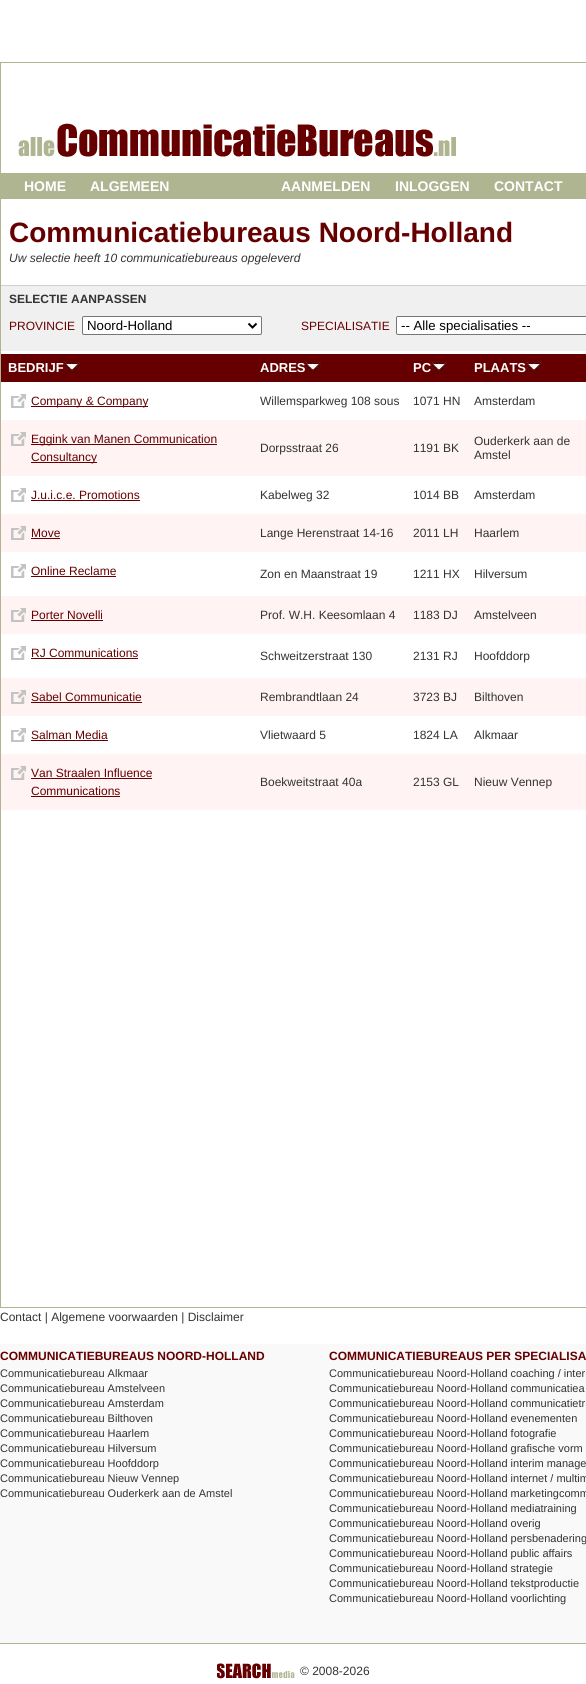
#include <cairo.h>
#include <math.h>
#include <stddef.h>

typedef struct { double x, y; const char *s; } line_t;

static void ink(cairo_t *ctx, unsigned color) {
    cairo_set_source_rgb(ctx, (color >> 16) / 255.0, (color >> 8 & 255) / 255.0, (color & 255) / 255.0);
}

static void round_path(cairo_t *ctx, double x, double y, double w, double h, double r) {
    cairo_new_sub_path(ctx);
    cairo_arc(ctx, x + w - r, y + h - r, r, 0, M_PI / 2);
    cairo_arc(ctx, x + r, y + h - r, r, M_PI / 2, M_PI);
    cairo_arc(ctx, x + r, y + r, r, M_PI, 1.5 * M_PI);
    cairo_arc(ctx, x + w - r, y + r, r, 1.5 * M_PI, 2 * M_PI);
    cairo_close_path(ctx);
}

static void paste(cairo_t *ctx, const char *path, double x, double y, double w, double h) {
    cairo_surface_t *image = cairo_image_surface_create_from_png(path);
    cairo_save(ctx);
    cairo_set_source_surface(ctx, image, x, y);
    cairo_rectangle(ctx, x, y, w, h);
    cairo_fill(ctx);
    cairo_restore(ctx);
    cairo_surface_destroy(image);
}

int main(void) {
    cairo_surface_t *surface = cairo_image_surface_create(CAIRO_FORMAT_RGB24, 586, 1684);
    cairo_t *ctx = cairo_create(surface);
    cairo_font_options_t *options = cairo_font_options_create();
    cairo_font_options_set_hint_metrics(options, CAIRO_HINT_METRICS_OFF);
    cairo_font_options_set_hint_style(options, CAIRO_HINT_STYLE_NONE);
    cairo_set_font_options(ctx, options);
    cairo_set_miter_limit(ctx, 4);
    ink(ctx, 0xFFFFFF);
    cairo_paint(ctx);
    ink(ctx, 0xAFB491);
    cairo_rectangle(ctx, 0, 62, 586, 1);
    cairo_fill(ctx);
    cairo_rectangle(ctx, 0, 62, 1, 111);
    cairo_fill(ctx);
    paste(ctx, "media/1.png", 18, 123, 438, 34);
    cairo_rectangle(ctx, 0, 173, 586, 26);
    cairo_fill(ctx);
    cairo_select_font_face(ctx, "Liberation Sans", CAIRO_FONT_SLANT_NORMAL, CAIRO_FONT_WEIGHT_BOLD);
    cairo_set_font_size(ctx, 14);
    ink(ctx, 0xFFFFFF);
    {
        static const line_t items[] = {
            {24, 191, "HOME"},
            {90, 191, "ALGEMEEN"},
            {281, 191, "AANMELDEN"},
            {395, 191, "INLOGGEN"},
            {494, 191, "CONTACT"},
        };
        for (size_t i = 0; i < sizeof items / sizeof *items; i++) {
            cairo_move_to(ctx, items[i].x, items[i].y);
            cairo_show_text(ctx, items[i].s);
        }
    }
    ink(ctx, 0xAFB491);
    cairo_rectangle(ctx, 0, 199, 1, 58);
    cairo_fill(ctx);
    cairo_set_font_size(ctx, 28);
    ink(ctx, 0x660000);
    cairo_move_to(ctx, 9, 242);
    cairo_show_text(ctx, "Communicatiebureaus Noord-Holland");
    ink(ctx, 0xAFB491);
    cairo_rectangle(ctx, 0, 1307, 586, 1);
    cairo_fill(ctx);
    cairo_rectangle(ctx, 0, 257, 1, 1051);
    cairo_fill(ctx);
    cairo_select_font_face(ctx, "Liberation Sans", CAIRO_FONT_SLANT_ITALIC, CAIRO_FONT_WEIGHT_NORMAL);
    cairo_set_font_size(ctx, 12);
    ink(ctx, 0x333333);
    cairo_move_to(ctx, 9, 262);
    cairo_show_text(ctx, "Uw selectie heeft 10 communicatiebureaus opgeleverd");
    ink(ctx, 0xF0F0F0);
    cairo_rectangle(ctx, 1, 286, 585, 26);
    cairo_fill(ctx);
    ink(ctx, 0xD0D0D0);
    cairo_rectangle(ctx, 1, 285, 585, 1);
    cairo_fill(ctx);
    cairo_select_font_face(ctx, "Liberation Sans", CAIRO_FONT_SLANT_NORMAL, CAIRO_FONT_WEIGHT_BOLD);
    ink(ctx, 0x333333);
    cairo_move_to(ctx, 9, 303);
    cairo_show_text(ctx, "SELECTIE AANPASSEN");
    ink(ctx, 0xF0F0F0);
    cairo_rectangle(ctx, 1, 312, 585, 39);
    cairo_fill(ctx);
    cairo_select_font_face(ctx, "Liberation Sans", CAIRO_FONT_SLANT_NORMAL, CAIRO_FONT_WEIGHT_NORMAL);
    ink(ctx, 0x660000);
    cairo_move_to(ctx, 9, 330);
    cairo_show_text(ctx, "PROVINCIE");
    ink(ctx, 0xFFFFFF);
    round_path(ctx, 82.5, 316.5, 179, 18, 1.5);
    cairo_fill_preserve(ctx);
    ink(ctx, 0x767676);
    cairo_set_line_width(ctx, 1);
    cairo_stroke(ctx);
    cairo_new_path(ctx);
    cairo_move_to(ctx, 248.5, 323.5);
    cairo_line_to(ctx, 252.5, 327.5);
    cairo_line_to(ctx, 256.5, 323.5);
    ink(ctx, 0x000000);
    cairo_set_line_width(ctx, 2);
    cairo_stroke(ctx);
    cairo_set_font_size(ctx, 13.25);
    cairo_move_to(ctx, 87, 330);
    cairo_show_text(ctx, "Noord-Holland");
    cairo_set_font_size(ctx, 12);
    ink(ctx, 0x660000);
    cairo_move_to(ctx, 301, 330);
    cairo_show_text(ctx, "SPECIALISATIE");
    ink(ctx, 0xFFFFFF);
    round_path(ctx, 396.5, 316.5, 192, 18, 1.5);
    cairo_fill_preserve(ctx);
    ink(ctx, 0x767676);
    cairo_set_line_width(ctx, 1);
    cairo_stroke(ctx);
    cairo_set_font_size(ctx, 13.25);
    ink(ctx, 0x000000);
    cairo_move_to(ctx, 401, 330);
    cairo_show_text(ctx, "-- Alle specialisaties --");
    ink(ctx, 0x660000);
    cairo_rectangle(ctx, 1, 354, 585, 28);
    cairo_fill(ctx);
    cairo_select_font_face(ctx, "Liberation Sans", CAIRO_FONT_SLANT_NORMAL, CAIRO_FONT_WEIGHT_BOLD);
    cairo_set_font_size(ctx, 13);
    ink(ctx, 0xFFFFFF);
    cairo_move_to(ctx, 8, 372);
    cairo_show_text(ctx, "BEDRIJF");
    paste(ctx, "media/2.png", 64, 361, 16, 12);
    cairo_move_to(ctx, 260, 372);
    cairo_show_text(ctx, "ADRES");
    paste(ctx, "media/2.png", 305, 361, 16, 12);
    cairo_move_to(ctx, 413, 372);
    cairo_show_text(ctx, "PC");
    paste(ctx, "media/2.png", 431, 361, 16, 12);
    cairo_move_to(ctx, 474, 372);
    cairo_show_text(ctx, "PLAATS");
    paste(ctx, "media/2.png", 526, 361, 16, 12);
    paste(ctx, "media/3.png", 11, 394, 15, 14);
    ink(ctx, 0x660000);
    cairo_rectangle(ctx, 31, 406, 117, 1);
    cairo_fill(ctx);
    cairo_select_font_face(ctx, "Liberation Sans", CAIRO_FONT_SLANT_NORMAL, CAIRO_FONT_WEIGHT_NORMAL);
    cairo_set_font_size(ctx, 12);
    cairo_move_to(ctx, 31, 405);
    cairo_show_text(ctx, "Company & Company");
    ink(ctx, 0x333333);
    {
        static const line_t items[] = {
            {260, 405, "Willemsparkweg 108 sous"},
            {413, 405, "1071 HN"},
            {474, 405, "Amsterdam"},
        };
        for (size_t i = 0; i < sizeof items / sizeof *items; i++) {
            cairo_move_to(ctx, items[i].x, items[i].y);
            cairo_show_text(ctx, items[i].s);
        }
    }
    ink(ctx, 0xFFF3F3);
    cairo_rectangle(ctx, 1, 420, 585, 56);
    cairo_fill(ctx);
    paste(ctx, "media/4.png", 11, 432, 15, 14);
    ink(ctx, 0x660000);
    cairo_rectangle(ctx, 31, 444, 186, 1);
    cairo_fill(ctx);
    cairo_move_to(ctx, 31, 443);
    cairo_show_text(ctx, "Eggink van Manen Communication");
    cairo_rectangle(ctx, 31, 462, 66, 1);
    cairo_fill(ctx);
    cairo_move_to(ctx, 31, 461);
    cairo_show_text(ctx, "Consultancy");
    ink(ctx, 0x333333);
    {
        static const line_t items[] = {
            {260, 452, "Dorpsstraat 26"},
            {413, 452, "1191 BK"},
            {474, 445, "Ouderkerk aan de"},
            {474, 459, "Amstel"},
        };
        for (size_t i = 0; i < sizeof items / sizeof *items; i++) {
            cairo_move_to(ctx, items[i].x, items[i].y);
            cairo_show_text(ctx, items[i].s);
        }
    }
    paste(ctx, "media/3.png", 11, 488, 15, 14);
    ink(ctx, 0x660000);
    cairo_move_to(ctx, 31, 499);
    cairo_show_text(ctx, "J.u.i.c.e. Promotions");
    cairo_rectangle(ctx, 31, 500, 109, 1);
    cairo_fill(ctx);
    ink(ctx, 0x333333);
    {
        static const line_t items[] = {
            {260, 499, "Kabelweg 32"},
            {413, 499, "1014 BB"},
            {474, 499, "Amsterdam"},
        };
        for (size_t i = 0; i < sizeof items / sizeof *items; i++) {
            cairo_move_to(ctx, items[i].x, items[i].y);
            cairo_show_text(ctx, items[i].s);
        }
    }
    ink(ctx, 0xFFF3F3);
    cairo_rectangle(ctx, 1, 514, 585, 38);
    cairo_fill(ctx);
    paste(ctx, "media/4.png", 11, 526, 15, 14);
    ink(ctx, 0x660000);
    cairo_move_to(ctx, 31, 537);
    cairo_show_text(ctx, "Move");
    cairo_rectangle(ctx, 31, 538, 29, 1);
    cairo_fill(ctx);
    ink(ctx, 0x333333);
    {
        static const line_t items[] = {
            {260, 537, "Lange Herenstraat 14-16"},
            {413, 537, "2011 LH"},
            {474, 537, "Haarlem"},
        };
        for (size_t i = 0; i < sizeof items / sizeof *items; i++) {
            cairo_move_to(ctx, items[i].x, items[i].y);
            cairo_show_text(ctx, items[i].s);
        }
    }
    paste(ctx, "media/3.png", 11, 564, 15, 14);
    ink(ctx, 0x660000);
    cairo_move_to(ctx, 31, 575);
    cairo_show_text(ctx, "Online Reclame");
    cairo_rectangle(ctx, 31, 576, 85, 1);
    cairo_fill(ctx);
    ink(ctx, 0x333333);
    {
        static const line_t items[] = {
            {260, 578, "Zon en Maanstraat 19"},
            {413, 578, "1211 HX"},
            {474, 578, "Hilversum"},
        };
        for (size_t i = 0; i < sizeof items / sizeof *items; i++) {
            cairo_move_to(ctx, items[i].x, items[i].y);
            cairo_show_text(ctx, items[i].s);
        }
    }
    ink(ctx, 0xFFF3F3);
    cairo_rectangle(ctx, 1, 596, 585, 38);
    cairo_fill(ctx);
    paste(ctx, "media/4.png", 11, 608, 15, 14);
    ink(ctx, 0x660000);
    cairo_move_to(ctx, 31, 619);
    cairo_show_text(ctx, "Porter Novelli");
    cairo_rectangle(ctx, 31, 620, 72, 1);
    cairo_fill(ctx);
    ink(ctx, 0x333333);
    {
        static const line_t items[] = {
            {260, 619, "Prof. W.H. Keesomlaan 4"},
            {413, 619, "1183 DJ"},
            {474, 619, "Amstelveen"},
        };
        for (size_t i = 0; i < sizeof items / sizeof *items; i++) {
            cairo_move_to(ctx, items[i].x, items[i].y);
            cairo_show_text(ctx, items[i].s);
        }
    }
    paste(ctx, "media/3.png", 11, 646, 15, 14);
    ink(ctx, 0x660000);
    cairo_move_to(ctx, 31, 657);
    cairo_show_text(ctx, "RJ Communications");
    cairo_rectangle(ctx, 31, 658, 107, 1);
    cairo_fill(ctx);
    ink(ctx, 0x333333);
    {
        static const line_t items[] = {
            {260, 660, "Schweitzerstraat 130"},
            {413, 660, "2131 RJ"},
            {474, 660, "Hoofddorp"},
        };
        for (size_t i = 0; i < sizeof items / sizeof *items; i++) {
            cairo_move_to(ctx, items[i].x, items[i].y);
            cairo_show_text(ctx, items[i].s);
        }
    }
    ink(ctx, 0xFFF3F3);
    cairo_rectangle(ctx, 1, 678, 585, 38);
    cairo_fill(ctx);
    paste(ctx, "media/4.png", 11, 690, 15, 14);
    ink(ctx, 0x660000);
    cairo_move_to(ctx, 31, 701);
    cairo_show_text(ctx, "Sabel Communicatie");
    cairo_rectangle(ctx, 31, 702, 111, 1);
    cairo_fill(ctx);
    ink(ctx, 0x333333);
    {
        static const line_t items[] = {
            {260, 701, "Rembrandtlaan 24"},
            {413, 701, "3723 BJ"},
            {474, 701, "Bilthoven"},
        };
        for (size_t i = 0; i < sizeof items / sizeof *items; i++) {
            cairo_move_to(ctx, items[i].x, items[i].y);
            cairo_show_text(ctx, items[i].s);
        }
    }
    paste(ctx, "media/3.png", 11, 728, 15, 14);
    ink(ctx, 0x660000);
    cairo_move_to(ctx, 31, 739);
    cairo_show_text(ctx, "Salman Media");
    cairo_rectangle(ctx, 31, 740, 77, 1);
    cairo_fill(ctx);
    ink(ctx, 0x333333);
    {
        static const line_t items[] = {
            {260, 739, "Vlietwaard 5"},
            {413, 739, "1824 LA"},
            {474, 739, "Alkmaar"},
        };
        for (size_t i = 0; i < sizeof items / sizeof *items; i++) {
            cairo_move_to(ctx, items[i].x, items[i].y);
            cairo_show_text(ctx, items[i].s);
        }
    }
    ink(ctx, 0xFFF3F3);
    cairo_rectangle(ctx, 1, 754, 585, 56);
    cairo_fill(ctx);
    paste(ctx, "media/4.png", 11, 766, 15, 14);
    ink(ctx, 0x660000);
    cairo_move_to(ctx, 31, 777);
    cairo_show_text(ctx, "Van Straalen Influence");
    cairo_rectangle(ctx, 31, 778, 121, 1);
    cairo_fill(ctx);
    cairo_move_to(ctx, 31, 795);
    cairo_show_text(ctx, "Communications");
    cairo_rectangle(ctx, 31, 796, 89, 1);
    cairo_fill(ctx);
    ink(ctx, 0x333333);
    {
        static const line_t items[] = {
            {260, 786, "Boekweitstraat 40a"},
            {413, 786, "2153 GL"},
            {474, 786, "Nieuw Vennep"},
            {0, 1321, "Contact | Algemene voorwaarden | Disclaimer"},
        };
        for (size_t i = 0; i < sizeof items / sizeof *items; i++) {
            cairo_move_to(ctx, items[i].x, items[i].y);
            cairo_show_text(ctx, items[i].s);
        }
    }
    ink(ctx, 0xF9F9F9);
    cairo_rectangle(ctx, 0, 1344, 586, 299);
    cairo_fill(ctx);
    ink(ctx, 0xAFB491);
    cairo_rectangle(ctx, 0, 1643, 586, 1);
    cairo_fill(ctx);
    cairo_select_font_face(ctx, "Liberation Sans", CAIRO_FONT_SLANT_NORMAL, CAIRO_FONT_WEIGHT_BOLD);
    ink(ctx, 0x660000);
    cairo_move_to(ctx, 0, 1360);
    cairo_show_text(ctx, "COMMUNICATIEBUREAUS NOORD-HOLLAND");
    cairo_select_font_face(ctx, "Liberation Sans", CAIRO_FONT_SLANT_NORMAL, CAIRO_FONT_WEIGHT_NORMAL);
    cairo_set_font_size(ctx, 11);
    ink(ctx, 0x333333);
    {
        static const line_t items[] = {
            {0, 1377, "Communicatiebureau Alkmaar"},
            {0, 1392, "Communicatiebureau Amstelveen"},
            {0, 1407, "Communicatiebureau Amsterdam"},
            {0, 1422, "Communicatiebureau Bilthoven"},
            {0, 1437, "Communicatiebureau Haarlem"},
            {0, 1452, "Communicatiebureau Hilversum"},
            {0, 1467, "Communicatiebureau Hoofddorp"},
            {0, 1482, "Communicatiebureau Nieuw Vennep"},
            {0, 1497, "Communicatiebureau Ouderkerk aan de Amstel"},
        };
        for (size_t i = 0; i < sizeof items / sizeof *items; i++) {
            cairo_move_to(ctx, items[i].x, items[i].y);
            cairo_show_text(ctx, items[i].s);
        }
    }
    cairo_select_font_face(ctx, "Liberation Sans", CAIRO_FONT_SLANT_NORMAL, CAIRO_FONT_WEIGHT_BOLD);
    cairo_set_font_size(ctx, 12);
    ink(ctx, 0x660000);
    cairo_move_to(ctx, 329, 1360);
    cairo_show_text(ctx, "COMMUNICATIEBUREAUS PER SPECIALISA");
    cairo_select_font_face(ctx, "Liberation Sans", CAIRO_FONT_SLANT_NORMAL, CAIRO_FONT_WEIGHT_NORMAL);
    cairo_set_font_size(ctx, 11);
    ink(ctx, 0x333333);
    {
        static const line_t items[] = {
            {329, 1377, "Communicatiebureau Noord-Holland coaching / inter"},
            {329, 1392, "Communicatiebureau Noord-Holland communicatiea"},
            {329, 1407, "Communicatiebureau Noord-Holland communicatietr"},
            {329, 1422, "Communicatiebureau Noord-Holland evenementen"},
            {329, 1437, "Communicatiebureau Noord-Holland fotografie"},
            {329, 1452, "Communicatiebureau Noord-Holland grafische vorm"},
            {329, 1467, "Communicatiebureau Noord-Holland interim manage"},
            {329, 1482, "Communicatiebureau Noord-Holland internet / multim"},
            {329, 1497, "Communicatiebureau Noord-Holland marketingcomm"},
            {329, 1512, "Communicatiebureau Noord-Holland mediatraining"},
            {329, 1527, "Communicatiebureau Noord-Holland overig"},
            {329, 1542, "Communicatiebureau Noord-Holland persbenadering"},
            {329, 1557, "Communicatiebureau Noord-Holland public affairs"},
            {329, 1572, "Communicatiebureau Noord-Holland strategie"},
            {329, 1587, "Communicatiebureau Noord-Holland tekstproductie"},
            {329, 1602, "Communicatiebureau Noord-Holland voorlichting"},
        };
        for (size_t i = 0; i < sizeof items / sizeof *items; i++) {
            cairo_move_to(ctx, items[i].x, items[i].y);
            cairo_show_text(ctx, items[i].s);
        }
    }
    paste(ctx, "media/5.png", 217, 1663, 78, 16);
    cairo_set_font_size(ctx, 12);
    cairo_move_to(ctx, 300, 1675);
    cairo_show_text(ctx, "© 2008-2026");
    cairo_surface_write_to_png(surface, "image.png");
    cairo_font_options_destroy(options);
    cairo_destroy(ctx);
    cairo_surface_destroy(surface);
    return 0;
}
